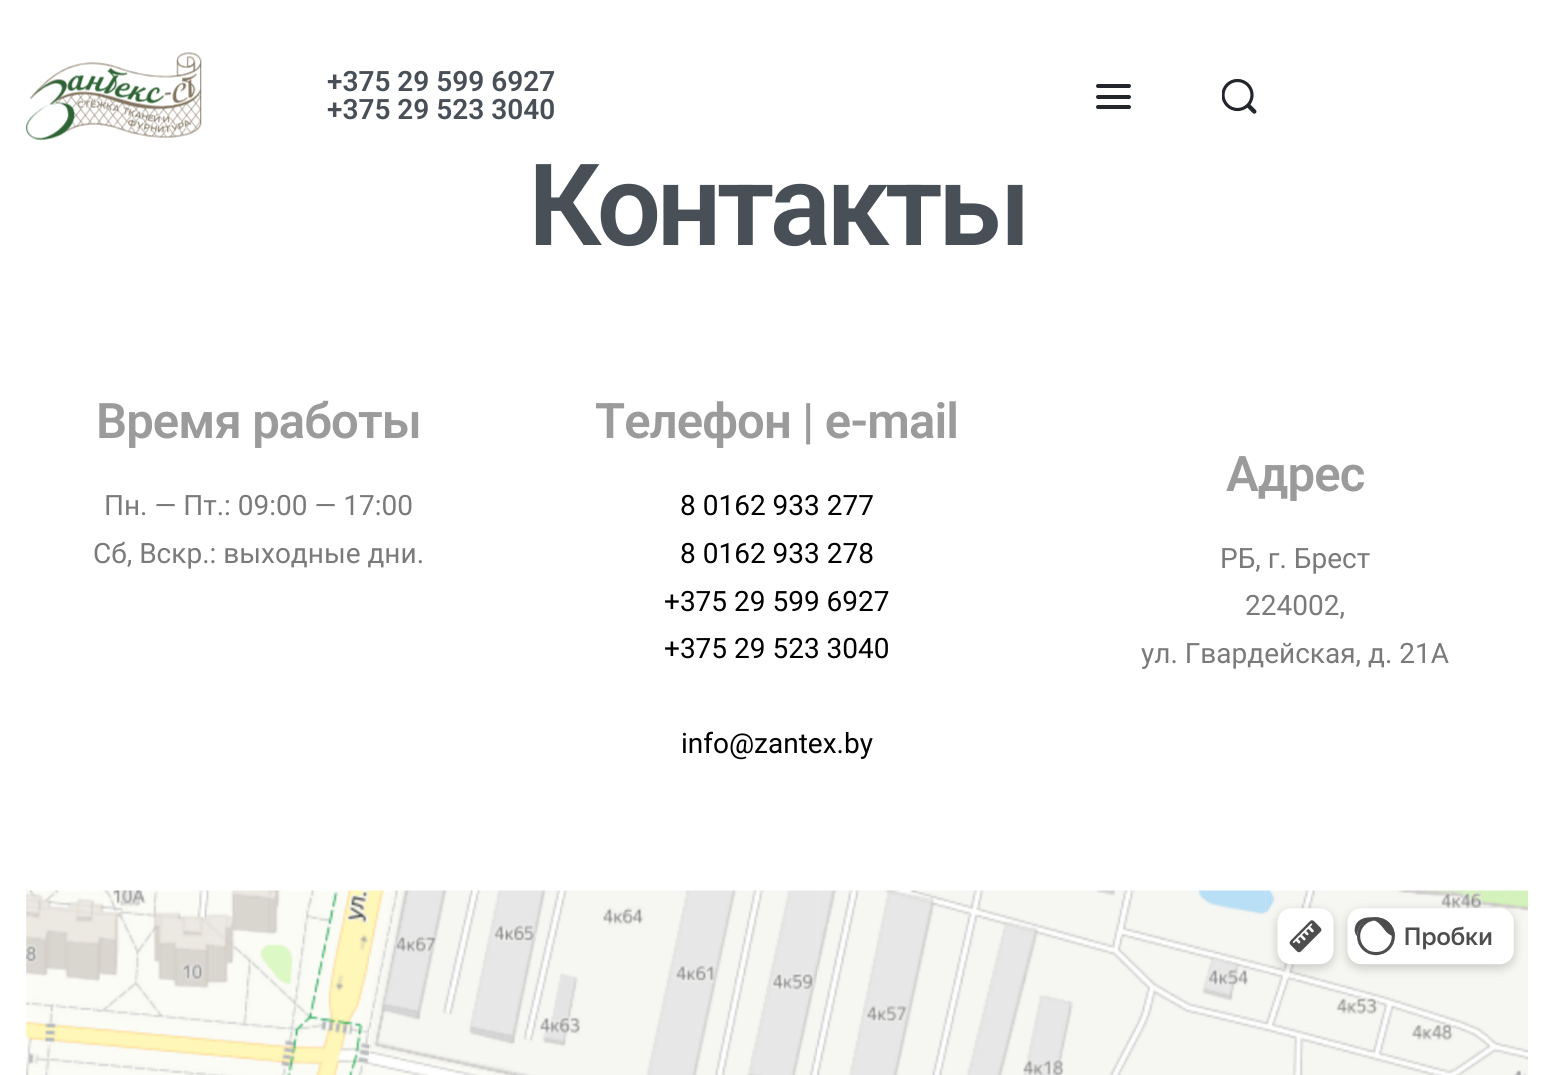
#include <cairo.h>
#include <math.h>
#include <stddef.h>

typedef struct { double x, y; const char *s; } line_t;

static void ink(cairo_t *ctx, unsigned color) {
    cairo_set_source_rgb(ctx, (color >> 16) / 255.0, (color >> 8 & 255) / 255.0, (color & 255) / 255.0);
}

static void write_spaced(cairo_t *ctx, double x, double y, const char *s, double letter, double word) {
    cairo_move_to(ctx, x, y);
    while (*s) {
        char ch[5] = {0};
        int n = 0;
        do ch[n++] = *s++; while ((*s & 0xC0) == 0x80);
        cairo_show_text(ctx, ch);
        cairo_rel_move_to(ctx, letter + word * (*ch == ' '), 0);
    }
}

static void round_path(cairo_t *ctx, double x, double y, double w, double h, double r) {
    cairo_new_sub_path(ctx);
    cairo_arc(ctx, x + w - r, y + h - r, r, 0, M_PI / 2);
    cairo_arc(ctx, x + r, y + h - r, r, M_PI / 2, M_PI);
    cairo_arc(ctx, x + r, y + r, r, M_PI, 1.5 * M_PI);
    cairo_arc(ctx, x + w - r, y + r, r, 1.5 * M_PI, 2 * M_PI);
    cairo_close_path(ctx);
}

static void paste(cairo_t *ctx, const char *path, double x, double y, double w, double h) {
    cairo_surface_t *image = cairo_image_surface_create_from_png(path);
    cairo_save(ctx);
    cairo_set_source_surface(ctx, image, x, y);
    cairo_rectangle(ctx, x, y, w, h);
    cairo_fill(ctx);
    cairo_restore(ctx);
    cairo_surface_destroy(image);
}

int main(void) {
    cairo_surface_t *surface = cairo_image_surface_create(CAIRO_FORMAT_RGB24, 1554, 1075);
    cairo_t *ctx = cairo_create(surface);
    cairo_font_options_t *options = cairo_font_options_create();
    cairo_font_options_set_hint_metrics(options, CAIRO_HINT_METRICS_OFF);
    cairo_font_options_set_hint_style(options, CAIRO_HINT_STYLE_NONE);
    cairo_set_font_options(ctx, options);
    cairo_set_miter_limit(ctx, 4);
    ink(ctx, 0xFFFFFF);
    cairo_paint(ctx);
    paste(ctx, "media/1.png", 26, 52, 176, 89);
    cairo_select_font_face(ctx, "Roboto SemiBold", CAIRO_FONT_SLANT_NORMAL, CAIRO_FONT_WEIGHT_NORMAL);
    cairo_set_font_size(ctx, 28);
    ink(ctx, 0x484F56);
    cairo_move_to(ctx, 327, 91);
    cairo_show_text(ctx, "+375 29 599 6927");
    cairo_move_to(ctx, 327, 119);
    cairo_show_text(ctx, "+375 29 523 3040");
    ink(ctx, 0x22262A);
    round_path(ctx, 1096, 84, 35, 4, 2);
    cairo_fill(ctx);
    round_path(ctx, 1096, 95, 35, 4, 2);
    cairo_fill(ctx);
    round_path(ctx, 1096, 105, 35, 4, 2);
    cairo_fill(ctx);
    paste(ctx, "media/2.png", 1222, 79, 35, 35);
    cairo_set_font_size(ctx, 113.75);
    ink(ctx, 0x484F56);
    write_spaced(ctx, 528, 245, "Контакты", -4.5, 0);
    cairo_set_font_size(ctx, 49);
    ink(ctx, 0x9B9B9B);
    write_spaced(ctx, 96, 438, "Время работы", -0.9, 0);
    cairo_select_font_face(ctx, "Roboto", CAIRO_FONT_SLANT_NORMAL, CAIRO_FONT_WEIGHT_NORMAL);
    cairo_set_font_size(ctx, 28);
    ink(ctx, 0x7A7A7A);
    cairo_move_to(ctx, 104, 515);
    cairo_show_text(ctx, "Пн. — Пт.: 09:00 — 17:00");
    cairo_move_to(ctx, 93, 563);
    cairo_show_text(ctx, "Сб, Вскр.: выходные дни.");
    cairo_select_font_face(ctx, "Roboto SemiBold", CAIRO_FONT_SLANT_NORMAL, CAIRO_FONT_WEIGHT_NORMAL);
    cairo_set_font_size(ctx, 49);
    ink(ctx, 0x9B9B9B);
    write_spaced(ctx, 595, 438, "Телефон | e-mail", -0.9, 0);
    cairo_select_font_face(ctx, "Roboto", CAIRO_FONT_SLANT_NORMAL, CAIRO_FONT_WEIGHT_NORMAL);
    cairo_set_font_size(ctx, 28);
    ink(ctx, 0x000000);
    {
        static const line_t items[] = {
            {680, 515, "8 0162 933 277"},
            {680, 563, "8 0162 933 278"},
            {664, 611, "+375 29 599 6927"},
            {664, 658, "+375 29 523 3040"},
            {681, 753, "info@zantex.by"},
        };
        for (size_t i = 0; i < sizeof items / sizeof *items; i++) {
            cairo_move_to(ctx, items[i].x, items[i].y);
            cairo_show_text(ctx, items[i].s);
        }
    }
    cairo_select_font_face(ctx, "Roboto SemiBold", CAIRO_FONT_SLANT_NORMAL, CAIRO_FONT_WEIGHT_NORMAL);
    cairo_set_font_size(ctx, 49);
    ink(ctx, 0x9B9B9B);
    write_spaced(ctx, 1226, 491, "Адрес", -0.9, 0);
    cairo_select_font_face(ctx, "Roboto", CAIRO_FONT_SLANT_NORMAL, CAIRO_FONT_WEIGHT_NORMAL);
    cairo_set_font_size(ctx, 28);
    ink(ctx, 0x7A7A7A);
    {
        static const line_t items[] = {
            {1220, 568, "РБ, г. Брест"},
            {1245, 615, "224002,"},
            {1141, 663, "ул. Гвардейская, д. 21А"},
        };
        for (size_t i = 0; i < sizeof items / sizeof *items; i++) {
            cairo_move_to(ctx, items[i].x, items[i].y);
            cairo_show_text(ctx, items[i].s);
        }
    }
    paste(ctx, "media/3.png", 26, 890, 1502, 185);
    cairo_surface_write_to_png(surface, "image.png");
    cairo_font_options_destroy(options);
    cairo_destroy(ctx);
    cairo_surface_destroy(surface);
    return 0;
}
